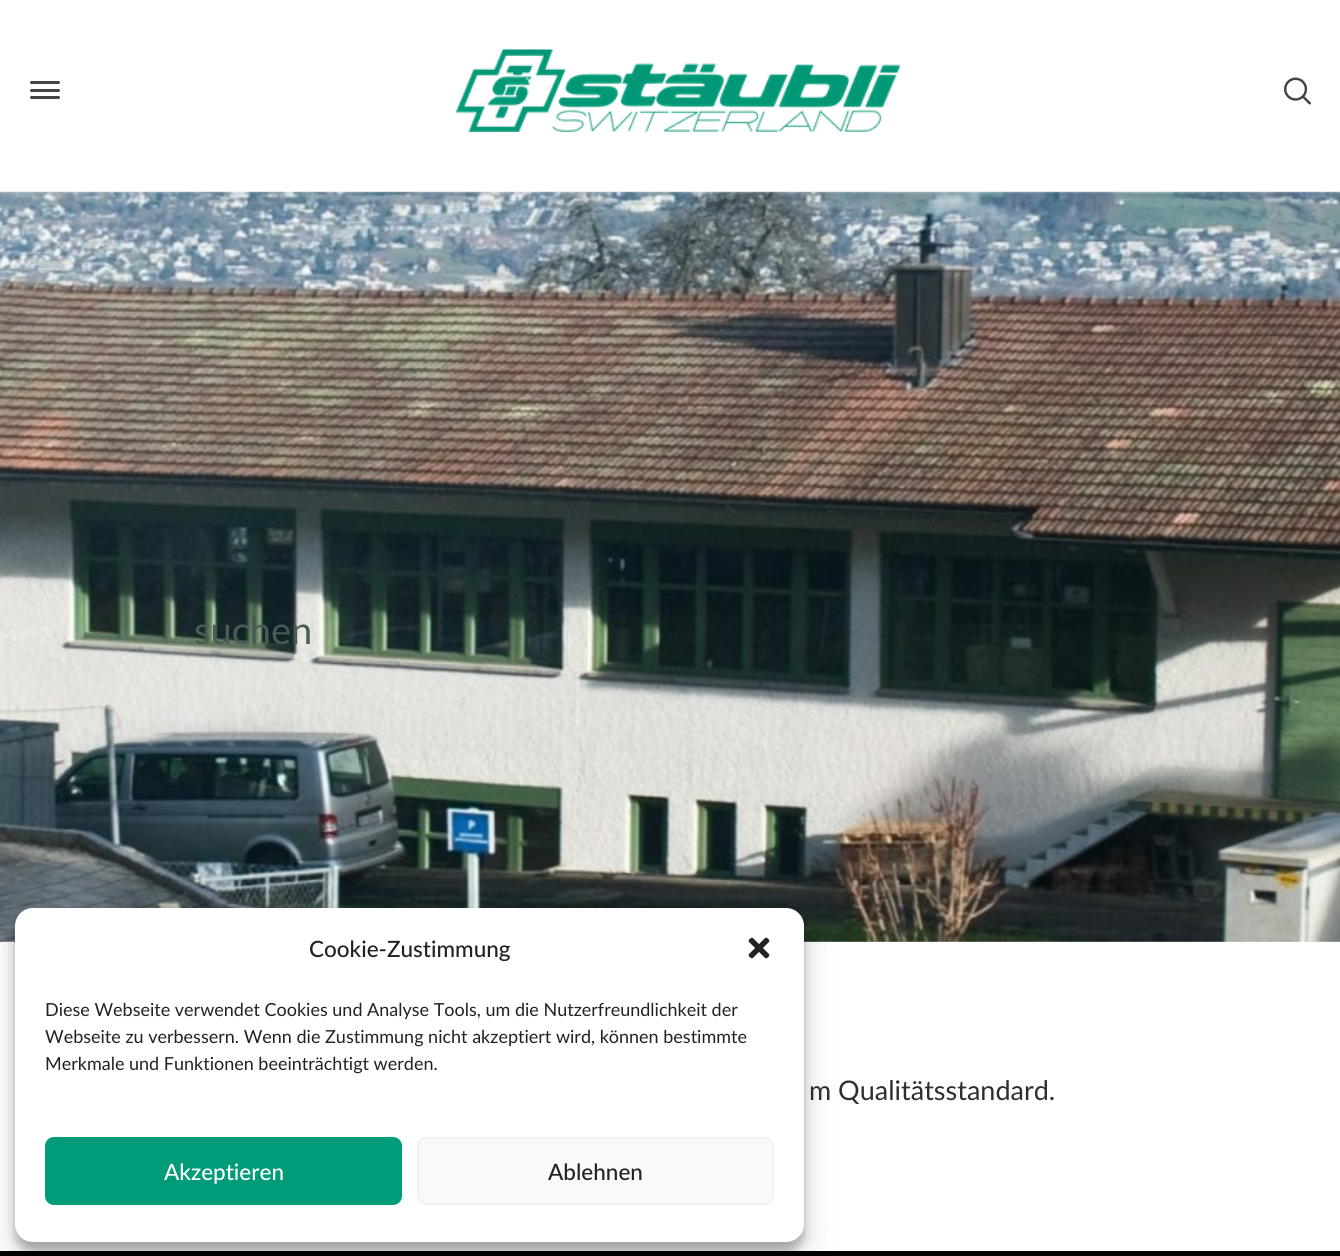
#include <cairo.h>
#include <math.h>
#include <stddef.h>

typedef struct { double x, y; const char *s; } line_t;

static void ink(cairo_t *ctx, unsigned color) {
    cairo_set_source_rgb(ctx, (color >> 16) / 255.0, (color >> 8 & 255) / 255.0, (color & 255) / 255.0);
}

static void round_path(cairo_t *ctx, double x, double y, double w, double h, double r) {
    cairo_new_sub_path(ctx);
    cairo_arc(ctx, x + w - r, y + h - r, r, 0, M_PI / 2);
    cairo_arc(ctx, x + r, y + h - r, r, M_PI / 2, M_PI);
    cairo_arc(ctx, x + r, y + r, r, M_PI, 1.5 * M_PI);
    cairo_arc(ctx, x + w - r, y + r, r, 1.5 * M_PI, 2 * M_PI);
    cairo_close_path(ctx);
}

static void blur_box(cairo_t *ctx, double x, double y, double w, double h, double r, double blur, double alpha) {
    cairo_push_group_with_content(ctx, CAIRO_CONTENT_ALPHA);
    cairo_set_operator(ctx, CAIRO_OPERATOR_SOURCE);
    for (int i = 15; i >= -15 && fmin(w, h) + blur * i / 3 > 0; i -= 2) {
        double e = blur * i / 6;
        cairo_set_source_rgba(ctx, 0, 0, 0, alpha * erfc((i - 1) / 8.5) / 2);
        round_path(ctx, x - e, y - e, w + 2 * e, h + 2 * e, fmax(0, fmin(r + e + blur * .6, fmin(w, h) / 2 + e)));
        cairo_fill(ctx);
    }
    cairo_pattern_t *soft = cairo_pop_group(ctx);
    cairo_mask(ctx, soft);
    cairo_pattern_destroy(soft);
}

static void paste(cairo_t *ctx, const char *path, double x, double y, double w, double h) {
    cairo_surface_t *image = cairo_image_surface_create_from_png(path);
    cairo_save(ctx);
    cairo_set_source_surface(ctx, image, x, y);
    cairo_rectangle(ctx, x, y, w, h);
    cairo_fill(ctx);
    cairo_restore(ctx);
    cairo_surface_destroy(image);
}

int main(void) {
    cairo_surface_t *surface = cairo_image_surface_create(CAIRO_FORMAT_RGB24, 1340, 1256);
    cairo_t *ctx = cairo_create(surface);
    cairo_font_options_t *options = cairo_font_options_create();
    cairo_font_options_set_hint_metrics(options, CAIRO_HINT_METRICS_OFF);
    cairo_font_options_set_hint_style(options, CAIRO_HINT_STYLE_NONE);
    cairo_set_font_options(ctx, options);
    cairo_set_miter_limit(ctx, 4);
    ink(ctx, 0xFFFFFF);
    cairo_paint(ctx);
    paste(ctx, "media/4.png", 0, 191, 1340, 751);
    cairo_select_font_face(ctx, "Lato", CAIRO_FONT_SLANT_NORMAL, CAIRO_FONT_WEIGHT_NORMAL);
    cairo_set_font_size(ctx, 38);
    ink(ctx, 0x495C53);
    cairo_move_to(ctx, 194, 644);
    cairo_show_text(ctx, "suchen");
    ink(ctx, 0x000000);
    cairo_rectangle(ctx, 0, 1251, 1340, 5);
    cairo_fill(ctx);
    ink(ctx, 0x000000);
    blur_box(ctx, 15, 917, 789, 334, 18, 4.5, 0.23);
    blur_box(ctx, 15, 923, 789, 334, 18, 15, 0.19);
    ink(ctx, 0xFFFFFF);
    round_path(ctx, 15, 908, 789, 334, 18);
    cairo_fill(ctx);
    cairo_select_font_face(ctx, "Lato Medium", CAIRO_FONT_SLANT_NORMAL, CAIRO_FONT_WEIGHT_NORMAL);
    cairo_set_font_size(ctx, 22.5);
    ink(ctx, 0x222222);
    cairo_move_to(ctx, 309, 957);
    cairo_show_text(ctx, "Cookie-Zustimmung");
    paste(ctx, "media/1.png", 748, 937, 22, 22);
    cairo_select_font_face(ctx, "Lato", CAIRO_FONT_SLANT_NORMAL, CAIRO_FONT_WEIGHT_NORMAL);
    cairo_set_font_size(ctx, 18);
    {
        static const line_t items[] = {
            {45, 1016, "Diese Webseite verwendet Cookies und Analyse Tools, um die Nutzerfreundlichkeit der"},
            {45, 1043, "Webseite zu verbessern. Wenn die Zustimmung nicht akzeptiert wird, können bestimmte"},
            {45, 1070, "Merkmale und Funktionen beeinträchtigt werden."},
        };
        for (size_t i = 0; i < sizeof items / sizeof *items; i++) {
            cairo_move_to(ctx, items[i].x, items[i].y);
            cairo_show_text(ctx, items[i].s);
        }
    }
    ink(ctx, 0x009B78);
    round_path(ctx, 46, 1138, 355, 66, 8);
    cairo_fill_preserve(ctx);
    cairo_stroke(ctx);
    cairo_select_font_face(ctx, "Lato Medium", CAIRO_FONT_SLANT_NORMAL, CAIRO_FONT_WEIGHT_NORMAL);
    cairo_set_font_size(ctx, 22.5);
    ink(ctx, 0xFFFFFF);
    cairo_move_to(ctx, 164, 1180);
    cairo_show_text(ctx, "Akzeptieren");
    ink(ctx, 0xF9F9F9);
    round_path(ctx, 418, 1138, 355, 66, 8);
    cairo_fill_preserve(ctx);
    ink(ctx, 0xF2F2F2);
    cairo_stroke(ctx);
    ink(ctx, 0x222222);
    cairo_move_to(ctx, 548, 1180);
    cairo_show_text(ctx, "Ablehnen");
    ink(ctx, 0x444444);
    round_path(ctx, 30, 81, 30, 3, 1.5);
    cairo_fill(ctx);
    round_path(ctx, 30, 89, 30, 3, 1.5);
    cairo_fill(ctx);
    round_path(ctx, 30, 96, 30, 3, 1.5);
    cairo_fill(ctx);
    paste(ctx, "media/2.png", 456, 49, 444, 83);
    paste(ctx, "media/3.png", 1284, 77, 27, 28);
    cairo_select_font_face(ctx, "Lato", CAIRO_FONT_SLANT_NORMAL, CAIRO_FONT_WEIGHT_NORMAL);
    cairo_set_font_size(ctx, 27);
    ink(ctx, 0x2F2F2F);
    cairo_move_to(ctx, 809, 1100);
    cairo_show_text(ctx, "m Qualitätsstandard.");
    cairo_surface_write_to_png(surface, "image.png");
    cairo_font_options_destroy(options);
    cairo_destroy(ctx);
    cairo_surface_destroy(surface);
    return 0;
}
